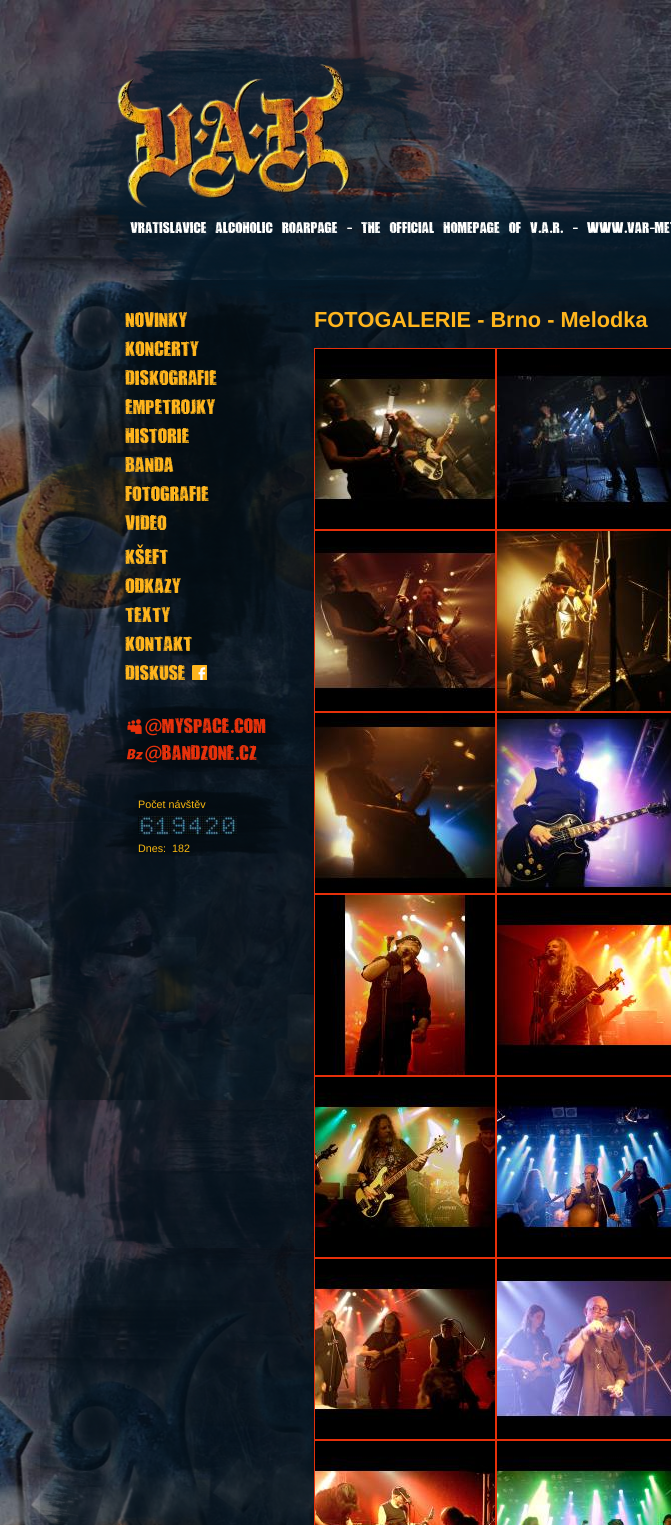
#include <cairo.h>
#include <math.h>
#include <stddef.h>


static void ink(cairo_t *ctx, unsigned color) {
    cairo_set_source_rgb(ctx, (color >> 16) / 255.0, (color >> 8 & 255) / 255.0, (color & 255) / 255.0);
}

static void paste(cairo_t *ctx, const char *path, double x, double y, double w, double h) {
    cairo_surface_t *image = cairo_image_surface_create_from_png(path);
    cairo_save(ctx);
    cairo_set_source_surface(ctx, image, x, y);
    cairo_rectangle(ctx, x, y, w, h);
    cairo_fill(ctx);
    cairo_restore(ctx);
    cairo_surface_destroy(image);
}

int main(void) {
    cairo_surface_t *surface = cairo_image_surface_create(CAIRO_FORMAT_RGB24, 671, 1525);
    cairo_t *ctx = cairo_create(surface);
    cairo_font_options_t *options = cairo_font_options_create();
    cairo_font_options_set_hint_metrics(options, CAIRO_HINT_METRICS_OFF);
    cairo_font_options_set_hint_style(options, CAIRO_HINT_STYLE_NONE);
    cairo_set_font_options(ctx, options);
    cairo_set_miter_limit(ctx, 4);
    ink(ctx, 0xFFFFFF);
    cairo_paint(ctx);
    paste(ctx, "media/1.png", 0, 0, 671, 1525);
    paste(ctx, "media/6.png", 40, 280, 631, 1245);
    paste(ctx, "media/4.png", 92, 168, 579, 141);
    paste(ctx, "media/2.png", 62, 36, 383, 158);
    paste(ctx, "media/3.png", 116, 63, 247, 145);
    paste(ctx, "media/5.png", 130, 222, 541, 11);
    cairo_select_font_face(ctx, "Liberation Sans", CAIRO_FONT_SLANT_NORMAL, CAIRO_FONT_WEIGHT_BOLD);
    cairo_set_font_size(ctx, 21.75);
    ink(ctx, 0xFFB51D);
    cairo_move_to(ctx, 314, 327);
    cairo_show_text(ctx, "FOTOGALERIE - Brno - Melodka");
    cairo_rectangle(ctx, 314.5, 348.5, 181, 181);
    ink(ctx, 0xE7300A);
    cairo_set_line_width(ctx, 1);
    cairo_stroke(ctx);
    paste(ctx, "media/7.png", 315, 349, 180, 180);
    cairo_rectangle(ctx, 496.5, 348.5, 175, 181);
    cairo_stroke(ctx);
    paste(ctx, "media/8.png", 497, 349, 174, 180);
    cairo_rectangle(ctx, 314.5, 530.5, 181, 181);
    cairo_stroke(ctx);
    paste(ctx, "media/9.png", 315, 531, 180, 180);
    cairo_rectangle(ctx, 496.5, 530.5, 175, 181);
    cairo_stroke(ctx);
    paste(ctx, "media/10.png", 497, 531, 174, 180);
    cairo_rectangle(ctx, 314.5, 712.5, 181, 181);
    cairo_stroke(ctx);
    paste(ctx, "media/11.png", 315, 713, 180, 180);
    cairo_rectangle(ctx, 496.5, 712.5, 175, 181);
    cairo_stroke(ctx);
    paste(ctx, "media/12.png", 497, 713, 174, 180);
    cairo_rectangle(ctx, 314.5, 894.5, 181, 181);
    cairo_stroke(ctx);
    paste(ctx, "media/13.png", 315, 895, 180, 180);
    cairo_rectangle(ctx, 496.5, 894.5, 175, 181);
    cairo_stroke(ctx);
    paste(ctx, "media/14.png", 497, 895, 174, 180);
    cairo_rectangle(ctx, 314.5, 1076.5, 181, 181);
    cairo_stroke(ctx);
    paste(ctx, "media/15.png", 315, 1077, 180, 180);
    cairo_rectangle(ctx, 496.5, 1076.5, 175, 181);
    cairo_stroke(ctx);
    paste(ctx, "media/16.png", 497, 1077, 174, 180);
    cairo_rectangle(ctx, 314.5, 1258.5, 181, 181);
    cairo_stroke(ctx);
    paste(ctx, "media/17.png", 315, 1259, 180, 180);
    cairo_rectangle(ctx, 496.5, 1258.5, 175, 181);
    cairo_stroke(ctx);
    paste(ctx, "media/18.png", 497, 1259, 174, 180);
    cairo_rectangle(ctx, 314.5, 1440.5, 181, 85);
    cairo_stroke(ctx);
    paste(ctx, "media/19.png", 315, 1441, 180, 84);
    cairo_rectangle(ctx, 496.5, 1440.5, 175, 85);
    cairo_stroke(ctx);
    paste(ctx, "media/20.png", 497, 1441, 174, 84);
    paste(ctx, "media/21.png", 103, 303, 192, 364);
    paste(ctx, "media/22.png", 125, 312, 62, 15);
    paste(ctx, "media/23.png", 125, 341, 74, 15);
    paste(ctx, "media/24.png", 125, 370, 92, 15);
    paste(ctx, "media/25.png", 125, 399, 90, 15);
    paste(ctx, "media/26.png", 125, 428, 64, 15);
    paste(ctx, "media/27.png", 125, 457, 49, 15);
    paste(ctx, "media/28.png", 125, 486, 84, 15);
    paste(ctx, "media/29.png", 125, 515, 42, 15);
    paste(ctx, "media/30.png", 125, 544, 43, 20);
    paste(ctx, "media/31.png", 125, 578, 56, 15);
    paste(ctx, "media/32.png", 125, 607, 45, 15);
    paste(ctx, "media/33.png", 125, 636, 67, 15);
    paste(ctx, "media/34.png", 125, 665, 60, 15);
    paste(ctx, "media/35.png", 192, 665, 15, 15);
    paste(ctx, "media/36.png", 105, 703, 183, 69);
    paste(ctx, "media/37.png", 127, 718, 139, 18);
    paste(ctx, "media/38.png", 127, 745, 130, 18);
    paste(ctx, "media/39.png", 105, 787, 183, 69);
    cairo_select_font_face(ctx, "Liberation Sans", CAIRO_FONT_SLANT_NORMAL, CAIRO_FONT_WEIGHT_NORMAL);
    cairo_set_font_size(ctx, 10.75);
    ink(ctx, 0xF9B810);
    cairo_move_to(ctx, 138, 808);
    cairo_show_text(ctx, "Počet návštěv");
    paste(ctx, "media/40.png", 138, 816, 17, 19);
    paste(ctx, "media/41.png", 155, 816, 15, 19);
    paste(ctx, "media/42.png", 170, 816, 17, 19);
    paste(ctx, "media/43.png", 187, 816, 16, 19);
    paste(ctx, "media/44.png", 203, 816, 17, 19);
    paste(ctx, "media/45.png", 220, 816, 17, 19);
    cairo_move_to(ctx, 138, 852);
    cairo_show_text(ctx, "Dnes:  182");
    cairo_surface_write_to_png(surface, "image.png");
    cairo_font_options_destroy(options);
    cairo_destroy(ctx);
    cairo_surface_destroy(surface);
    return 0;
}
